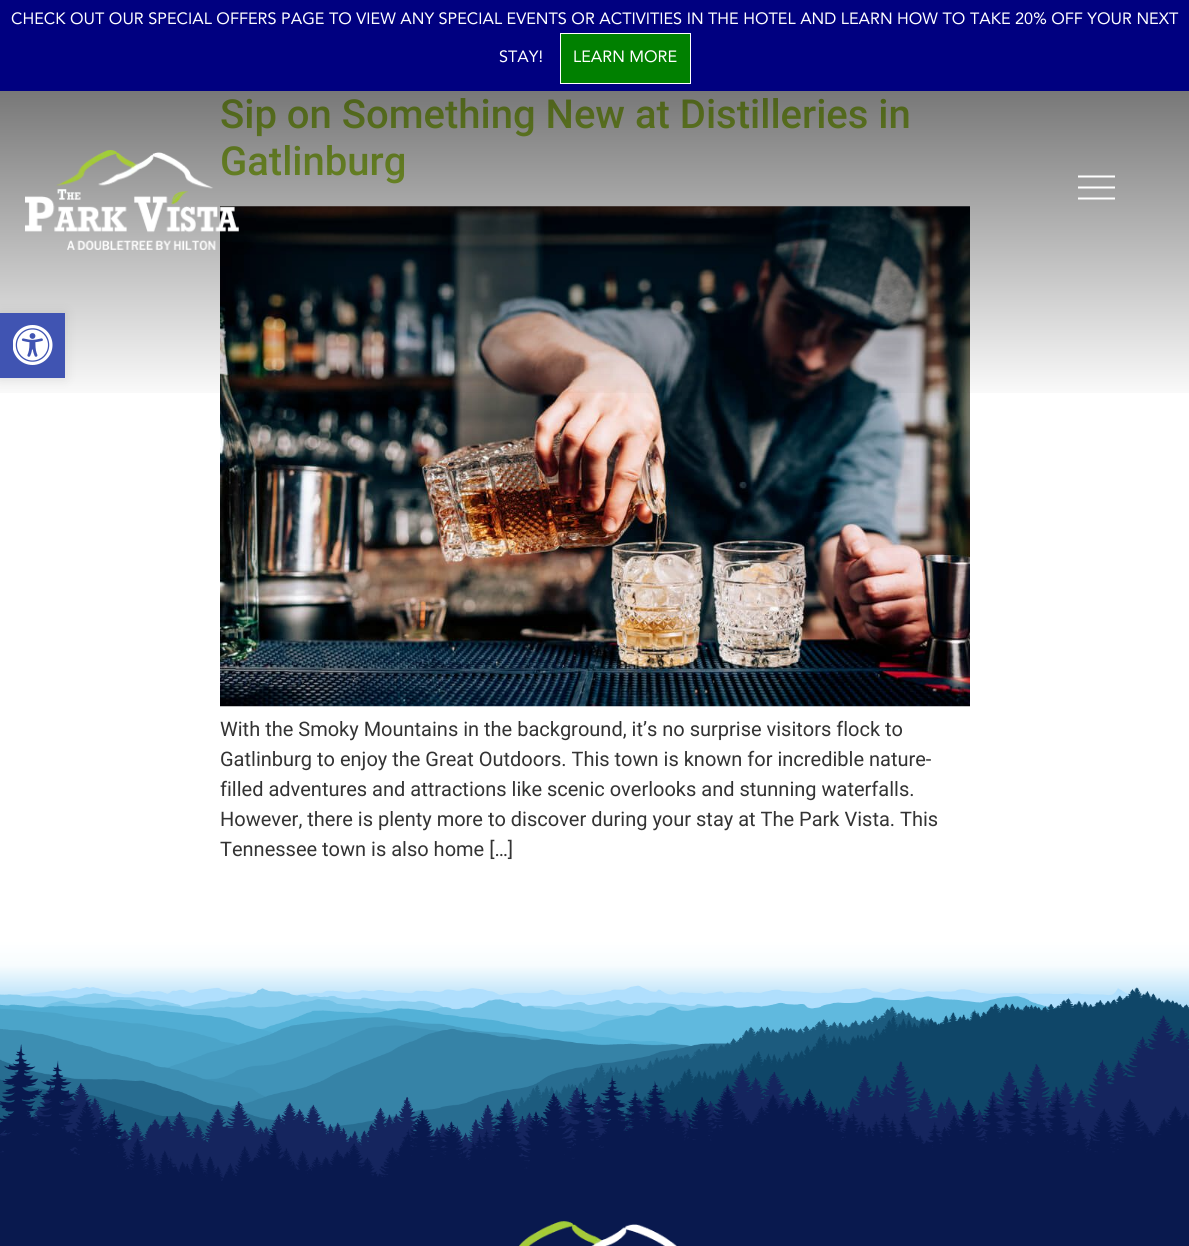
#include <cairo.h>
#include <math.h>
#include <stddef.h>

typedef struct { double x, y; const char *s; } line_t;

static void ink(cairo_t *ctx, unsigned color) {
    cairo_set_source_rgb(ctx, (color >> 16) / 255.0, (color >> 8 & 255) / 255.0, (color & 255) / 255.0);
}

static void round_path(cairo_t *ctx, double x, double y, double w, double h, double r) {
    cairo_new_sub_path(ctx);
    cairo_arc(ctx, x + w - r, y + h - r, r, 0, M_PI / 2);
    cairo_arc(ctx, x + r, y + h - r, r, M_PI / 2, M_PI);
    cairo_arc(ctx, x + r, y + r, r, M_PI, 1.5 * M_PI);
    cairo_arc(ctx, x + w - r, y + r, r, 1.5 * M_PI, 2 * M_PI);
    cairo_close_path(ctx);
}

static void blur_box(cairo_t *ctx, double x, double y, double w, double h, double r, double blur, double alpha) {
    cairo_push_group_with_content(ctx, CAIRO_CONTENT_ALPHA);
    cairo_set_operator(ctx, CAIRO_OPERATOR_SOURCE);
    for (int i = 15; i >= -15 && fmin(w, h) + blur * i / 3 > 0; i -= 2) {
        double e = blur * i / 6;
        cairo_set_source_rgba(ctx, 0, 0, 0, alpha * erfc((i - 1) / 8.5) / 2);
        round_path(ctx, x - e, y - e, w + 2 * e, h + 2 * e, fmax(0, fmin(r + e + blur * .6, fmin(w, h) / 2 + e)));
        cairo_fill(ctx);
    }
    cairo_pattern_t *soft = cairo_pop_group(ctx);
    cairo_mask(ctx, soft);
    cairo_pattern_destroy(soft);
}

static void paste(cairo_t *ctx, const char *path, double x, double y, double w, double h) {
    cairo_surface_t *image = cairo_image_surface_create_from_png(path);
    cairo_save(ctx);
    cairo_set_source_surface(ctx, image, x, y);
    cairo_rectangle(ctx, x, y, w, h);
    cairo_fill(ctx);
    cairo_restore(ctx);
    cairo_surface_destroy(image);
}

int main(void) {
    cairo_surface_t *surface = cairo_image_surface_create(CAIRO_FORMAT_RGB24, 1189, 1246);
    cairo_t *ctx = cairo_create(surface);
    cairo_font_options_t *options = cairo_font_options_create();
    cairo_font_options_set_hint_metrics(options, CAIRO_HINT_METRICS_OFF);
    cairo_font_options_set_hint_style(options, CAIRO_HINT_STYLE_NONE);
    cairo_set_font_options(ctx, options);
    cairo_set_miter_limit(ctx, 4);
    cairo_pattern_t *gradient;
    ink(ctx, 0xFFFFFF);
    cairo_paint(ctx);
    ink(ctx, 0x000080);
    cairo_rectangle(ctx, 0, 0, 1189, 91);
    cairo_fill(ctx);
    cairo_select_font_face(ctx, "Avenir", CAIRO_FONT_SLANT_NORMAL, CAIRO_FONT_WEIGHT_NORMAL);
    cairo_set_font_size(ctx, 16.25);
    ink(ctx, 0xFFFFFF);
    cairo_move_to(ctx, 11, 24);
    cairo_show_text(ctx, "CHECK OUT OUR SPECIAL OFFERS PAGE TO VIEW ANY SPECIAL EVENTS OR ACTIVITIES IN THE HOTEL AND LEARN HOW TO TAKE 20% OFF YOUR NEXT");
    cairo_move_to(ctx, 499, 62);
    cairo_show_text(ctx, "STAY!");
    ink(ctx, 0x008000);
    cairo_rectangle(ctx, 560.5, 33.5, 130, 50);
    cairo_fill_preserve(ctx);
    ink(ctx, 0xFFFFFF);
    cairo_set_line_width(ctx, 1);
    cairo_stroke(ctx);
    cairo_move_to(ctx, 573, 62);
    cairo_show_text(ctx, "LEARN MORE");
    cairo_select_font_face(ctx, "Roboto Medium", CAIRO_FONT_SLANT_NORMAL, CAIRO_FONT_WEIGHT_NORMAL);
    cairo_set_font_size(ctx, 40);
    ink(ctx, 0xA3CD39);
    cairo_move_to(ctx, 220, 128);
    cairo_show_text(ctx, "Sip on Something New at Distilleries in");
    cairo_move_to(ctx, 220, 175);
    cairo_show_text(ctx, "Gatlinburg");
    paste(ctx, "media/3.png", 220, 206, 750, 501);
    gradient = cairo_pattern_create_linear(595, 406, 595, 50);
    cairo_pattern_add_color_stop_rgba(gradient, 0, 0, 0, 0, 0);
    cairo_pattern_add_color_stop_rgba(gradient, 1, 0, 0, 0, 0.6);
    cairo_set_source(ctx, gradient);
    cairo_pattern_destroy(gradient);
    cairo_rectangle(ctx, 0, 91, 1189, 302);
    cairo_fill(ctx);
    paste(ctx, "media/1.png", 25, 150, 214, 100);
    cairo_save(ctx);
    cairo_rectangle(ctx, 1078, 169, 37, 37);
    cairo_clip(ctx);
    ink(ctx, 0xFFFFFF);
    cairo_set_fill_rule(ctx, CAIRO_FILL_RULE_EVEN_ODD);
    cairo_new_path(ctx);
    cairo_move_to(ctx, 1115, 197.5);
    cairo_line_to(ctx, 1115, 199.5);
    cairo_line_to(ctx, 1077.5, 199.5);
    cairo_line_to(ctx, 1077.5, 197.5);
    cairo_close_path(ctx);
    cairo_move_to(ctx, 1115, 186.5);
    cairo_line_to(ctx, 1115, 188.5);
    cairo_line_to(ctx, 1077.5, 188.5);
    cairo_line_to(ctx, 1077.5, 186.5);
    cairo_close_path(ctx);
    cairo_move_to(ctx, 1115, 175.5);
    cairo_line_to(ctx, 1115, 177.5);
    cairo_line_to(ctx, 1077.5, 177.5);
    cairo_line_to(ctx, 1077.5, 175.5);
    cairo_close_path(ctx);
    cairo_fill(ctx);
    cairo_restore(ctx);
    ink(ctx, 0x000000);
    blur_box(ctx, 0, 313, 65, 65, 0, 6, 0.1);
    ink(ctx, 0x4054B2);
    cairo_rectangle(ctx, 0, 313, 65, 65);
    cairo_fill(ctx);
    paste(ctx, "media/2.png", 13, 325, 40, 40);
    cairo_select_font_face(ctx, "Roboto", CAIRO_FONT_SLANT_NORMAL, CAIRO_FONT_WEIGHT_NORMAL);
    cairo_set_font_size(ctx, 20);
    ink(ctx, 0x333333);
    {
        static const line_t items[] = {
            {220, 736, "With the Smoky Mountains in the background, it’s no surprise visitors flock to"},
            {220, 766, "Gatlinburg to enjoy the Great Outdoors. This town is known for incredible nature-"},
            {220, 796, "filled adventures and attractions like scenic overlooks and stunning waterfalls."},
            {220, 826, "However, there is plenty more to discover during your stay at The Park Vista. This"},
            {220, 856, "Tennessee town is also home […]"},
        };
        for (size_t i = 0; i < sizeof items / sizeof *items; i++) {
            cairo_move_to(ctx, items[i].x, items[i].y);
            cairo_show_text(ctx, items[i].s);
        }
    }
    ink(ctx, 0x09194E);
    cairo_rectangle(ctx, 0, 1181, 1189, 65);
    cairo_fill(ctx);
    paste(ctx, "media/4.png", 0, 883, 1189, 298);
    paste(ctx, "media/5.png", 519, 1221, 158, 25);
    cairo_surface_write_to_png(surface, "image.png");
    cairo_font_options_destroy(options);
    cairo_destroy(ctx);
    cairo_surface_destroy(surface);
    return 0;
}
